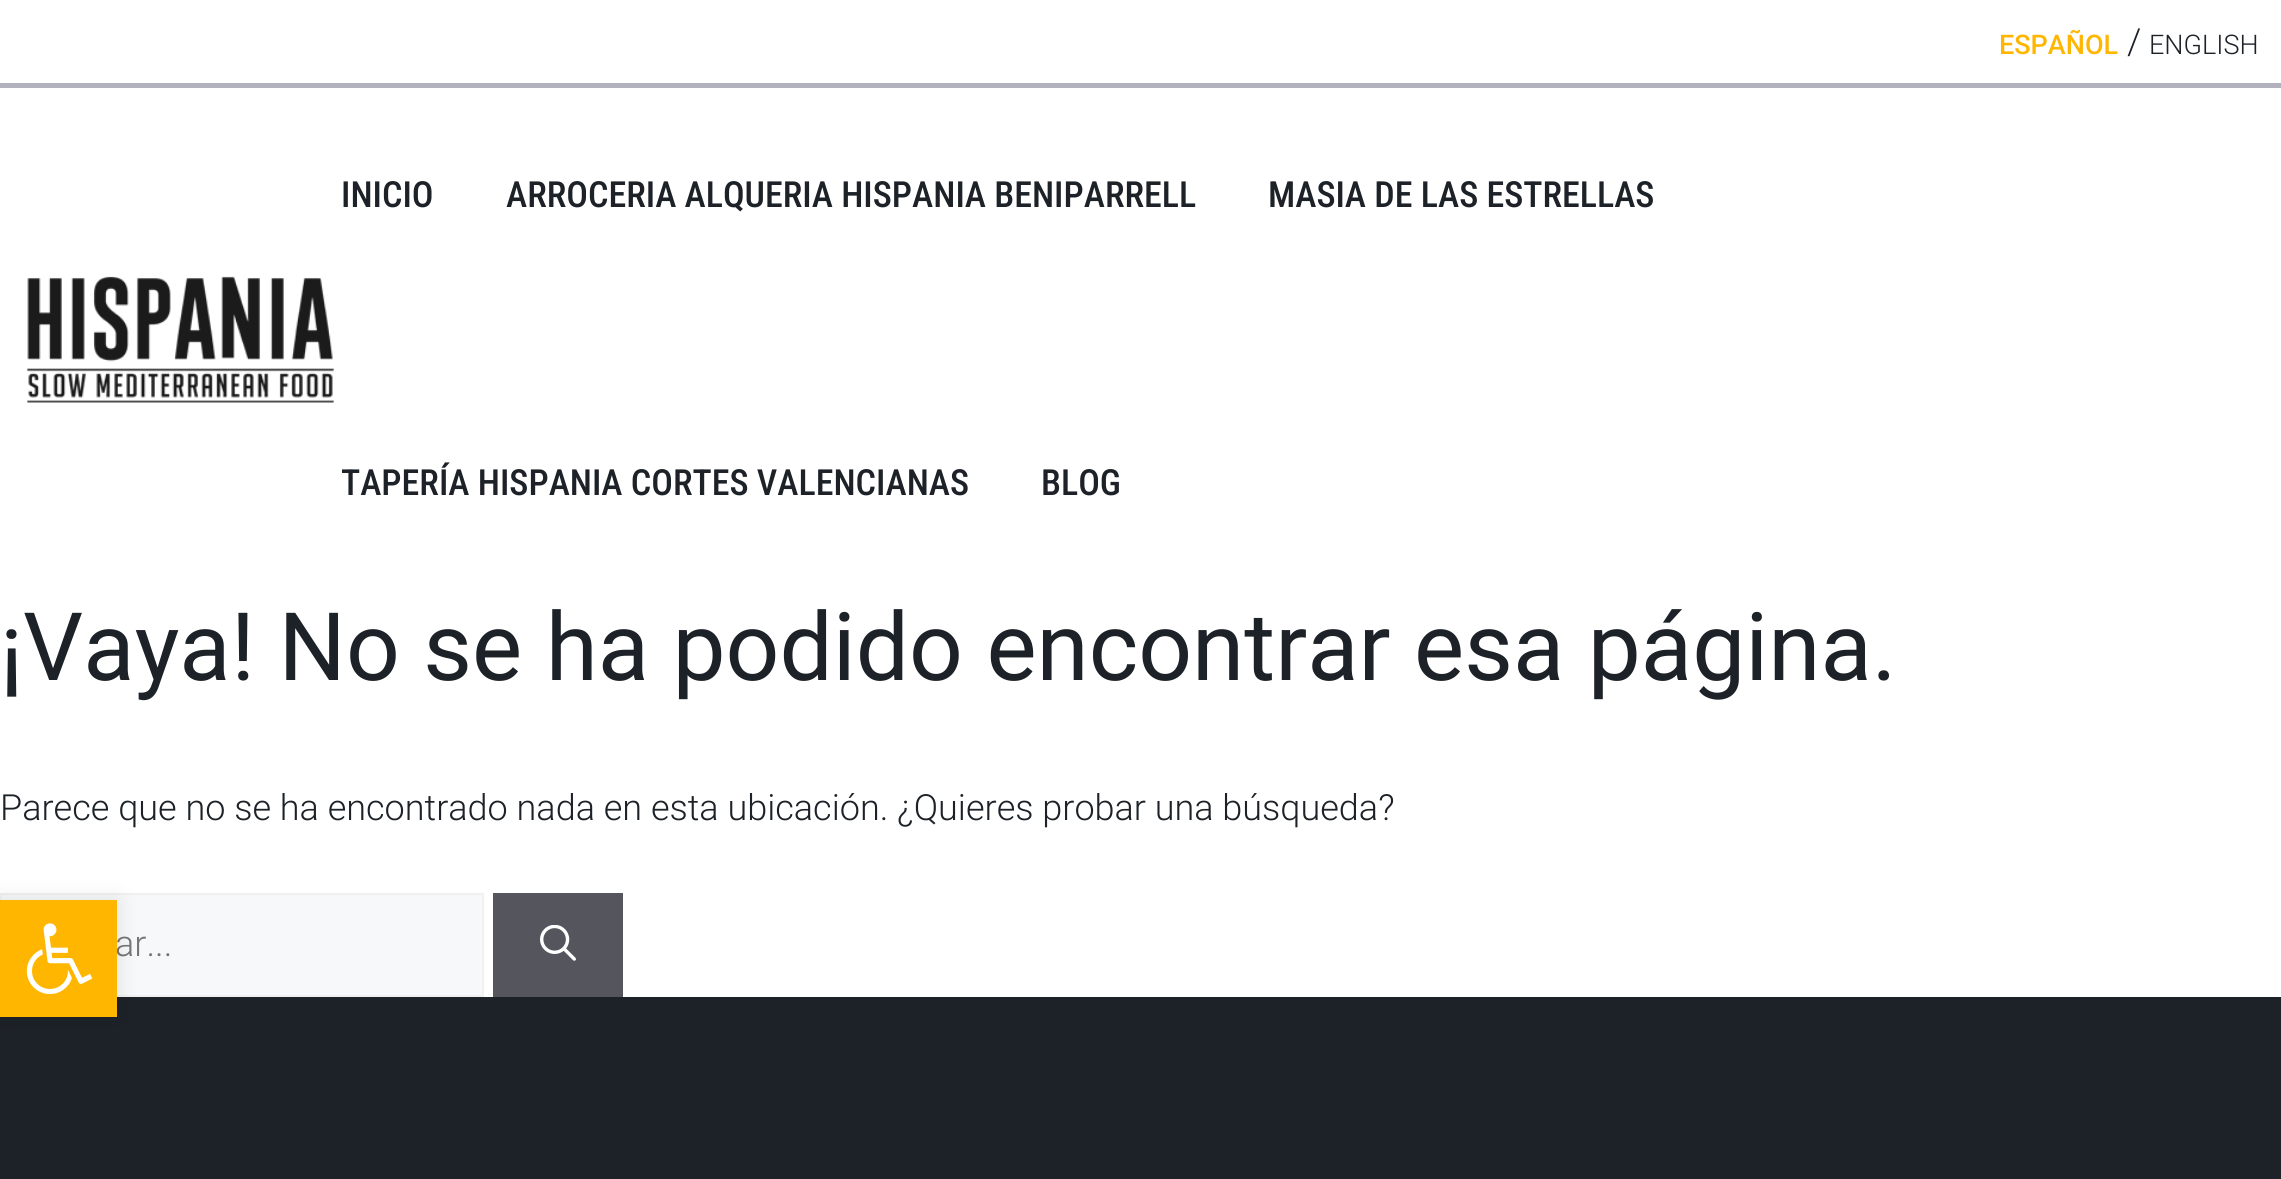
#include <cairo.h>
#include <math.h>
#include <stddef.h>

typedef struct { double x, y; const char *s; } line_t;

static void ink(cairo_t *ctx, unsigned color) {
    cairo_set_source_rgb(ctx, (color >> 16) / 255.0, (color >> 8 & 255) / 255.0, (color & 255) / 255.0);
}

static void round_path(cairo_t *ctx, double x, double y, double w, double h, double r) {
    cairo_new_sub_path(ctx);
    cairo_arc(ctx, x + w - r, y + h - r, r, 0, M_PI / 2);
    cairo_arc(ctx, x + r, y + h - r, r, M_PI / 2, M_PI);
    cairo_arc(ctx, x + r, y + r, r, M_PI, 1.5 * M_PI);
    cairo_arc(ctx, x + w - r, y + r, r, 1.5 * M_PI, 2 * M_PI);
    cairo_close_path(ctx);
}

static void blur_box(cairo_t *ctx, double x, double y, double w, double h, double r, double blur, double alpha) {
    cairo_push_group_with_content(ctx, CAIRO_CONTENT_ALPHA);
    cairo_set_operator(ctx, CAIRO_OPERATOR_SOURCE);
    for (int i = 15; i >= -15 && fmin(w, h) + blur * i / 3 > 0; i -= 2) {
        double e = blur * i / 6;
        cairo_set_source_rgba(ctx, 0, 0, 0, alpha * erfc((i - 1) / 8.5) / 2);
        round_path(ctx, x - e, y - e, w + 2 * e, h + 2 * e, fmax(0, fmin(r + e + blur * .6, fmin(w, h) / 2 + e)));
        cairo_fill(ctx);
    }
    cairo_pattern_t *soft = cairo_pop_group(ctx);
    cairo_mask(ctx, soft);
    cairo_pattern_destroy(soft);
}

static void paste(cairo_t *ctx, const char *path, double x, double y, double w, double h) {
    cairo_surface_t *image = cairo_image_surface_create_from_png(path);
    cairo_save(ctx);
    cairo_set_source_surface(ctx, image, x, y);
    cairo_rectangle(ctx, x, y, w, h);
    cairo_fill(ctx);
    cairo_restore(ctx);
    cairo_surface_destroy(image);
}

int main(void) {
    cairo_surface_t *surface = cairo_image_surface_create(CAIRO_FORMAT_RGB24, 2281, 1179);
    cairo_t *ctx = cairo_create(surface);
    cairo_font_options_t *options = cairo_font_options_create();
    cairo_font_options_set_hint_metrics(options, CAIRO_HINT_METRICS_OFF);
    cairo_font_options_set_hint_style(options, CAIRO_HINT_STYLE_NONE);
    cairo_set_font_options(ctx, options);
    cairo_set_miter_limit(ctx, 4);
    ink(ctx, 0xFFFFFF);
    cairo_paint(ctx);
    ink(ctx, 0xB2B2BE);
    cairo_rectangle(ctx, 0, 83, 2281, 5);
    cairo_fill(ctx);
    cairo_select_font_face(ctx, "Roboto Medium", CAIRO_FONT_SLANT_NORMAL, CAIRO_FONT_WEIGHT_NORMAL);
    cairo_set_font_size(ctx, 27);
    ink(ctx, 0xFFB600);
    cairo_move_to(ctx, 1999, 54);
    cairo_show_text(ctx, "ESPAÑOL");
    cairo_select_font_face(ctx, "Roboto Light", CAIRO_FONT_SLANT_NORMAL, CAIRO_FONT_WEIGHT_NORMAL);
    cairo_set_font_size(ctx, 36);
    ink(ctx, 0x1D2228);
    cairo_move_to(ctx, 2127, 54);
    cairo_show_text(ctx, "/");
    cairo_set_font_size(ctx, 27);
    cairo_move_to(ctx, 2149, 54);
    cairo_show_text(ctx, "ENGLISH");
    paste(ctx, "media/1.png", 27, 276, 307, 127);
    cairo_select_font_face(ctx, "Roboto Condensed Medium", CAIRO_FONT_SLANT_NORMAL, CAIRO_FONT_WEIGHT_NORMAL);
    cairo_set_font_size(ctx, 36);
    {
        static const line_t items[] = {
            {341, 207, "INICIO"},
            {506, 207, "ARROCERIA ALQUERIA HISPANIA BENIPARRELL"},
            {1268, 207, "MASIA DE LAS ESTRELLAS"},
            {341, 495, "TAPERÍA HISPANIA CORTES VALENCIANAS"},
            {1041, 495, "BLOG"},
        };
        for (size_t i = 0; i < sizeof items / sizeof *items; i++) {
            cairo_move_to(ctx, items[i].x, items[i].y);
            cairo_show_text(ctx, items[i].s);
        }
    }
    cairo_select_font_face(ctx, "Roboto", CAIRO_FONT_SLANT_NORMAL, CAIRO_FONT_WEIGHT_NORMAL);
    cairo_set_font_size(ctx, 94.5);
    cairo_move_to(ctx, 0, 680);
    cairo_show_text(ctx, "¡Vaya! No se ha podido encontrar esa página.");
    cairo_select_font_face(ctx, "Roboto Light", CAIRO_FONT_SLANT_NORMAL, CAIRO_FONT_WEIGHT_NORMAL);
    cairo_set_font_size(ctx, 36);
    cairo_move_to(ctx, 0, 820);
    cairo_show_text(ctx, "Parece que no se ha encontrado nada en esta ubicación. ¿Quieres probar una búsqueda?");
    ink(ctx, 0xF7F8F9);
    cairo_rectangle(ctx, 1, 894, 482, 102);
    cairo_fill_preserve(ctx);
    ink(ctx, 0xF0F0F0);
    cairo_stroke(ctx);
    ink(ctx, 0x757575);
    cairo_move_to(ctx, 115, 956);
    cairo_show_text(ctx, "ar...");
    ink(ctx, 0x55555E);
    cairo_rectangle(ctx, 493, 893, 130, 104);
    cairo_fill(ctx);
    paste(ctx, "media/2.png", 540, 925, 36, 36);
    ink(ctx, 0x1D2228);
    cairo_rectangle(ctx, 0, 997, 2281, 182);
    cairo_fill(ctx);
    ink(ctx, 0x000000);
    blur_box(ctx, 0, 900, 117, 117, 0, 11, 0.1);
    ink(ctx, 0xFFB600);
    cairo_rectangle(ctx, 0, 900, 117, 117);
    cairo_fill(ctx);
    paste(ctx, "media/3.png", 26, 923, 67, 72);
    cairo_surface_write_to_png(surface, "image.png");
    cairo_font_options_destroy(options);
    cairo_destroy(ctx);
    cairo_surface_destroy(surface);
    return 0;
}
